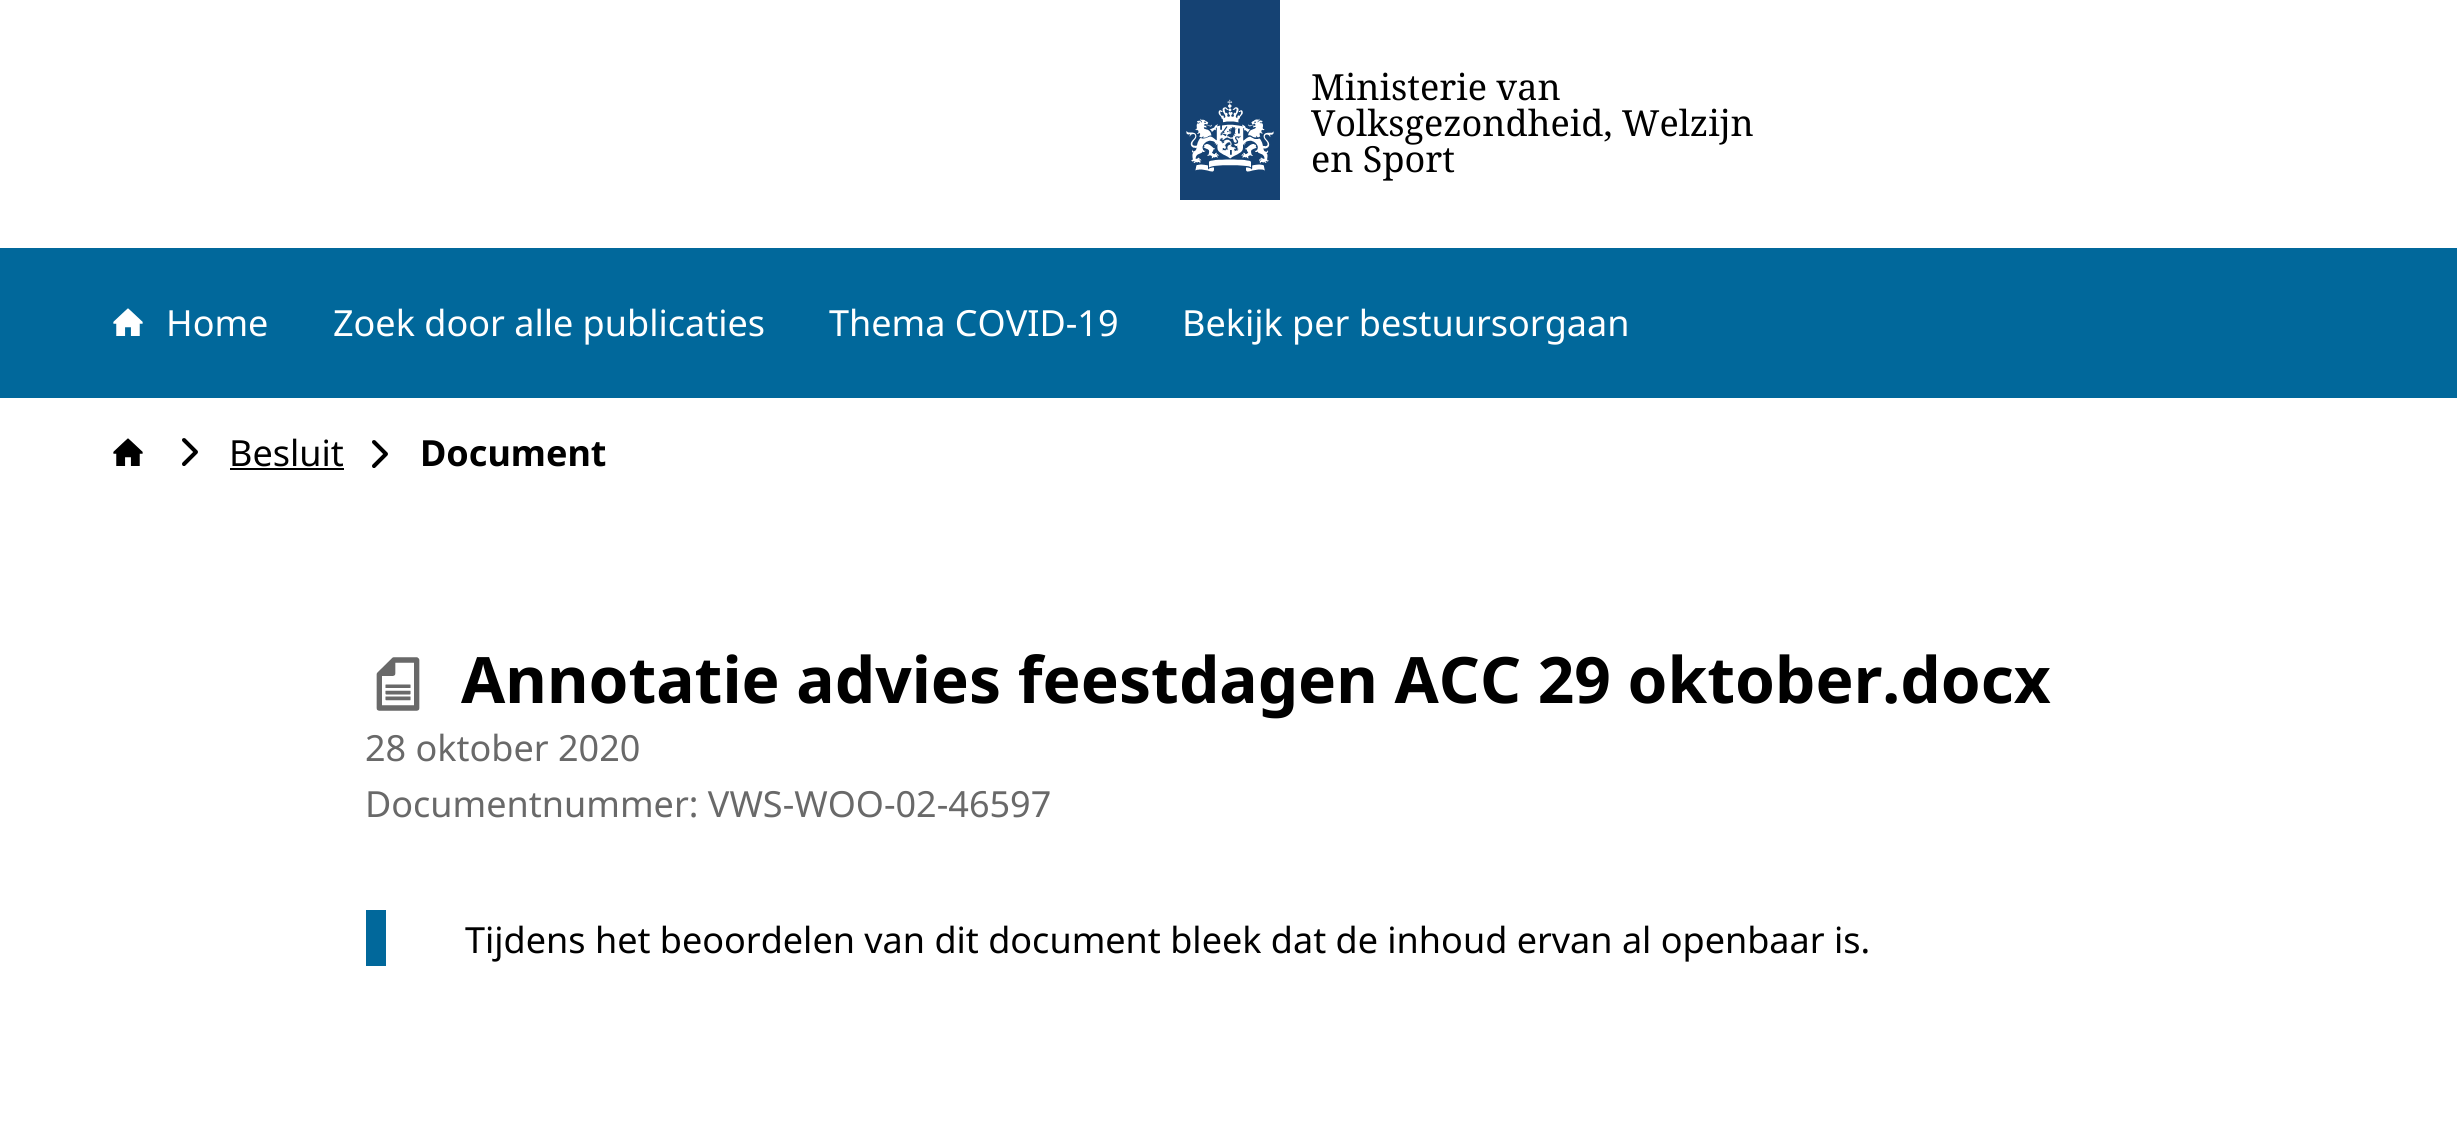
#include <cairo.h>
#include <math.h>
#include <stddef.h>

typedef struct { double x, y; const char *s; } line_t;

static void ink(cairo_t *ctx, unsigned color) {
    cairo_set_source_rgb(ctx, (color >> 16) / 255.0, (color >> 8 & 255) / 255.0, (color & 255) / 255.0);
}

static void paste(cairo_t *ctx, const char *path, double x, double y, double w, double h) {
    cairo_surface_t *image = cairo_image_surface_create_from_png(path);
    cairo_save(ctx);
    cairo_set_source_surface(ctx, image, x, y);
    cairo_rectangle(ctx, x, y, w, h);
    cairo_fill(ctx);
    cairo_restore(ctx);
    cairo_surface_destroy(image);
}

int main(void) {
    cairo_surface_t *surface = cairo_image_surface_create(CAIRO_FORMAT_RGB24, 2457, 1140);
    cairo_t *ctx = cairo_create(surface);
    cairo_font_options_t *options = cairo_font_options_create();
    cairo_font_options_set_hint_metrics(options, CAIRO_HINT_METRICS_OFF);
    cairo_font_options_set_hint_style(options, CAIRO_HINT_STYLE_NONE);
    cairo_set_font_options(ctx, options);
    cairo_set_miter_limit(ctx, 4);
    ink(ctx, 0xFFFFFF);
    cairo_paint(ctx);
    paste(ctx, "media/1.png", 1180, 0, 100, 200);
    cairo_select_font_face(ctx, "Noto Serif", CAIRO_FONT_SLANT_NORMAL, CAIRO_FONT_WEIGHT_NORMAL);
    cairo_set_font_size(ctx, 36);
    ink(ctx, 0x000000);
    {
        static const line_t items[] = {
            {1311, 100, "Ministerie van"},
            {1311, 136, "Volksgezondheid, Welzijn"},
            {1311, 172, "en Sport"},
        };
        for (size_t i = 0; i < sizeof items / sizeof *items; i++) {
            cairo_move_to(ctx, items[i].x, items[i].y);
            cairo_show_text(ctx, items[i].s);
        }
    }
    ink(ctx, 0x01689B);
    cairo_rectangle(ctx, 0, 248, 2457, 150);
    cairo_fill(ctx);
    paste(ctx, "media/2.png", 113, 308, 30, 28);
    cairo_select_font_face(ctx, "Noto Sans", CAIRO_FONT_SLANT_NORMAL, CAIRO_FONT_WEIGHT_NORMAL);
    ink(ctx, 0xFFFFFF);
    {
        static const line_t items[] = {
            {166, 336, "Home"},
            {333, 336, "Zoek door alle publicaties"},
            {829, 336, "Thema COVID-19"},
            {1182, 336, "Bekijk per bestuursorgaan"},
        };
        for (size_t i = 0; i < sizeof items / sizeof *items; i++) {
            cairo_move_to(ctx, items[i].x, items[i].y);
            cairo_show_text(ctx, items[i].s);
        }
    }
    paste(ctx, "media/3.png", 113, 438, 30, 28);
    paste(ctx, "media/4.png", 182, 438, 16, 28);
    ink(ctx, 0x000000);
    cairo_move_to(ctx, 229, 466);
    cairo_show_text(ctx, "Besluit");
    cairo_rectangle(ctx, 230, 468, 114, 2);
    cairo_fill(ctx);
    paste(ctx, "media/4.png", 372, 440, 16, 28);
    cairo_select_font_face(ctx, "Noto Sans", CAIRO_FONT_SLANT_NORMAL, CAIRO_FONT_WEIGHT_BOLD);
    cairo_move_to(ctx, 420, 466);
    cairo_show_text(ctx, "Document");
    paste(ctx, "media/5.png", 376, 657, 44, 54);
    cairo_set_font_size(ctx, 64);
    cairo_move_to(ctx, 461, 703);
    cairo_show_text(ctx, "Annotatie advies feestdagen ACC 29 oktober.docx");
    cairo_select_font_face(ctx, "Noto Sans", CAIRO_FONT_SLANT_NORMAL, CAIRO_FONT_WEIGHT_NORMAL);
    cairo_set_font_size(ctx, 36);
    ink(ctx, 0x696969);
    cairo_move_to(ctx, 365, 761);
    cairo_show_text(ctx, "28 oktober 2020");
    cairo_move_to(ctx, 365, 817);
    cairo_show_text(ctx, "Documentnummer: VWS-WOO-02-46597");
    ink(ctx, 0x01689B);
    cairo_rectangle(ctx, 366, 910, 20, 56);
    cairo_fill(ctx);
    ink(ctx, 0x000000);
    cairo_move_to(ctx, 465, 953);
    cairo_show_text(ctx, "Tijdens het beoordelen van dit document bleek dat de inhoud ervan al openbaar is.");
    cairo_surface_write_to_png(surface, "image.png");
    cairo_font_options_destroy(options);
    cairo_destroy(ctx);
    cairo_surface_destroy(surface);
    return 0;
}
